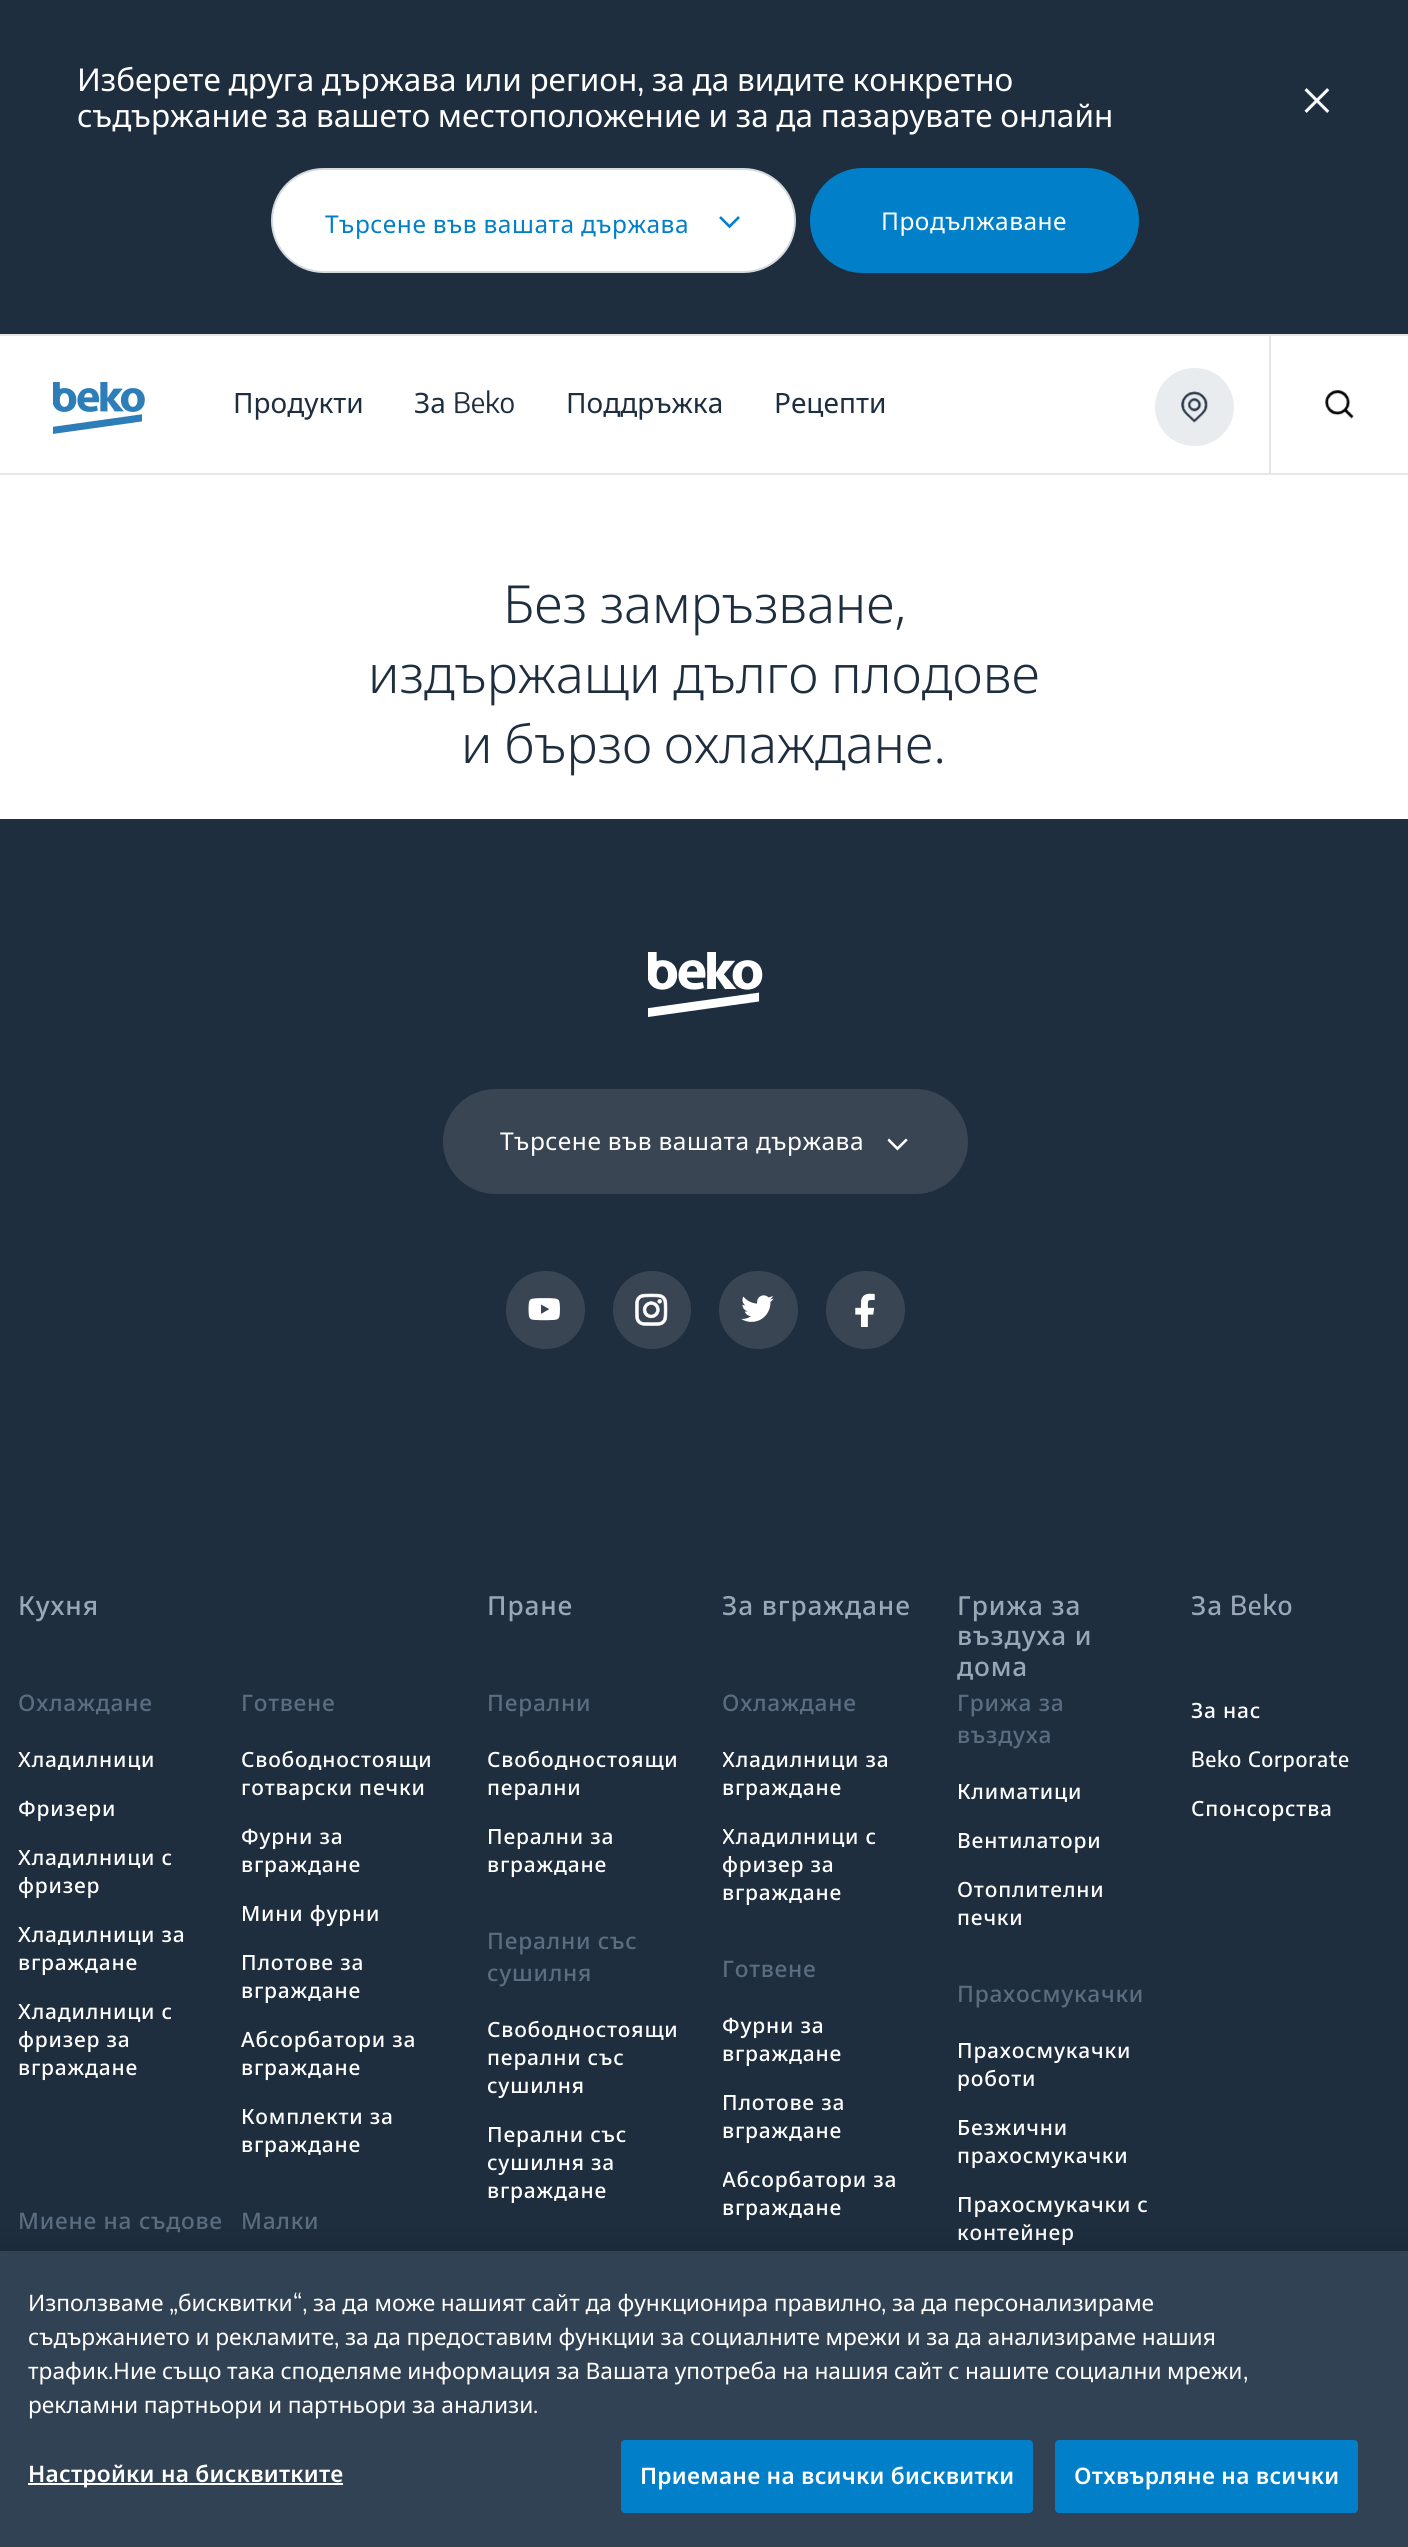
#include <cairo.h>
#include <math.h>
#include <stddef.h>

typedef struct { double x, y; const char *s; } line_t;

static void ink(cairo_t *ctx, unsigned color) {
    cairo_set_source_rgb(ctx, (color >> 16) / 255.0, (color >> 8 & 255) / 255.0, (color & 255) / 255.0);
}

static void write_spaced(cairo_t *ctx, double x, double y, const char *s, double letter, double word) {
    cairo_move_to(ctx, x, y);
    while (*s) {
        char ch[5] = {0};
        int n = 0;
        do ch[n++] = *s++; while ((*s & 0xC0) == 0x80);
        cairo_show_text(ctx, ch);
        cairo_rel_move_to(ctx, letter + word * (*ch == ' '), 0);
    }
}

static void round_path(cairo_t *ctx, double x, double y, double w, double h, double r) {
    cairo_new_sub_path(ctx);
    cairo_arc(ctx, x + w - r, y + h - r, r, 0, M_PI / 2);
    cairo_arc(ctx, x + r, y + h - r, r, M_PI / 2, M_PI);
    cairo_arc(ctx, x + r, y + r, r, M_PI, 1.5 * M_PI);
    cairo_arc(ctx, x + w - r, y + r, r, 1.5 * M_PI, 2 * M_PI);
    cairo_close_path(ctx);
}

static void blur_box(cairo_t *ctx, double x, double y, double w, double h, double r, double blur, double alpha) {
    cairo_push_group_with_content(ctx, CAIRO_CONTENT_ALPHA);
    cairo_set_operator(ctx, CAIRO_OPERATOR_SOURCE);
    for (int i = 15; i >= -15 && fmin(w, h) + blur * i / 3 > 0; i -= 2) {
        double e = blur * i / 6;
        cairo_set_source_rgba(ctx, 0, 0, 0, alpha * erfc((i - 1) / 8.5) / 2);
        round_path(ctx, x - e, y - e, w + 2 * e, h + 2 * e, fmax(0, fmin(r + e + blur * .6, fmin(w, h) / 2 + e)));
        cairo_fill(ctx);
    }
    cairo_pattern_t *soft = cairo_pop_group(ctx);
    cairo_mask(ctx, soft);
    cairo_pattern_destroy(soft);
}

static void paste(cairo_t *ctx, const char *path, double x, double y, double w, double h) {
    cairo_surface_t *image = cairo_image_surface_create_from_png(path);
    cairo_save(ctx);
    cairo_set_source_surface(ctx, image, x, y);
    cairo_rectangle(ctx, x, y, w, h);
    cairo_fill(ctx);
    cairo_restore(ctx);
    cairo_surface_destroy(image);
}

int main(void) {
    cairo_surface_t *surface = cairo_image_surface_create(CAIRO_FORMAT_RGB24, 1408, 2547);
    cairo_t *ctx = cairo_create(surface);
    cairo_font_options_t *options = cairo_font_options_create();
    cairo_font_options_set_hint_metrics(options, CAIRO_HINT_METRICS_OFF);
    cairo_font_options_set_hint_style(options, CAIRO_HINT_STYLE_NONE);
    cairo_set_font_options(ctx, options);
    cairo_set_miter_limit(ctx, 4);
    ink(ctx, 0xFFFFFF);
    cairo_paint(ctx);
    ink(ctx, 0x1E2E3F);
    cairo_rectangle(ctx, 0, 0, 1408, 334);
    cairo_fill(ctx);
    cairo_select_font_face(ctx, "Noto Sans", CAIRO_FONT_SLANT_NORMAL, CAIRO_FONT_WEIGHT_NORMAL);
    cairo_set_font_size(ctx, 31.5);
    ink(ctx, 0xFFFFFF);
    write_spaced(ctx, 77, 91, "Изберете друга държава или регион", 0, -0.5);
    cairo_select_font_face(ctx, "Encode Sans", CAIRO_FONT_SLANT_NORMAL, CAIRO_FONT_WEIGHT_NORMAL);
    cairo_move_to(ctx, 637, 91);
    cairo_show_text(ctx, ",");
    cairo_select_font_face(ctx, "Noto Sans", CAIRO_FONT_SLANT_NORMAL, CAIRO_FONT_WEIGHT_NORMAL);
    write_spaced(ctx, 652, 91, "за да видите конкретно", 0, -0.5);
    write_spaced(ctx, 77, 127, "съдържание за вашето местоположение и за да пазарувате онлайн", 0, -0.5);
    round_path(ctx, 272, 169, 523, 103, 51.5);
    cairo_fill_preserve(ctx);
    ink(ctx, 0xD4D9DE);
    cairo_stroke(ctx);
    cairo_set_font_size(ctx, 24.5);
    ink(ctx, 0x0180C9);
    write_spaced(ctx, 325, 233, "Търсене във вашата държава", 0.5, -0.5);
    cairo_new_path(ctx);
    cairo_move_to(ctx, 720, 217);
    cairo_line_to(ctx, 729.5, 226.5);
    cairo_line_to(ctx, 739, 217);
    cairo_set_line_width(ctx, 2.6);
    cairo_stroke(ctx);
    round_path(ctx, 810, 168, 329, 105, 52.5);
    cairo_fill(ctx);
    ink(ctx, 0xFFFFFF);
    write_spaced(ctx, 881, 230, "Продължаване", 0.5, 0);
    paste(ctx, "media/1.png", 1304, 88, 26, 25);
    ink(ctx, 0xE6E6E6);
    cairo_rectangle(ctx, 0, 334, 1408, 2);
    cairo_fill(ctx);
    cairo_rectangle(ctx, 0, 473, 1408, 2);
    cairo_fill(ctx);
    paste(ctx, "media/2.png", 53, 382, 92, 52);
    cairo_set_font_size(ctx, 28);
    ink(ctx, 0x1E2E3F);
    cairo_move_to(ctx, 233, 413);
    cairo_show_text(ctx, "Продукти");
    cairo_move_to(ctx, 414, 413);
    cairo_show_text(ctx, "За");
    cairo_select_font_face(ctx, "Encode Sans", CAIRO_FONT_SLANT_NORMAL, CAIRO_FONT_WEIGHT_NORMAL);
    cairo_move_to(ctx, 453, 413);
    cairo_show_text(ctx, "Beko");
    cairo_select_font_face(ctx, "Noto Sans", CAIRO_FONT_SLANT_NORMAL, CAIRO_FONT_WEIGHT_NORMAL);
    cairo_move_to(ctx, 566, 413);
    cairo_show_text(ctx, "Поддръжка");
    cairo_move_to(ctx, 774, 413);
    cairo_show_text(ctx, "Рецепти");
    ink(ctx, 0xE9ECEF);
    round_path(ctx, 1155, 368, 79, 78, 39);
    cairo_fill(ctx);
    paste(ctx, "media/3.png", 1181, 391, 27, 32);
    ink(ctx, 0xE6E6E6);
    cairo_rectangle(ctx, 1269, 336, 2, 137);
    cairo_fill(ctx);
    paste(ctx, "media/4.png", 1325, 390, 29, 29);
    cairo_select_font_face(ctx, "Noto Sans Light", CAIRO_FONT_SLANT_NORMAL, CAIRO_FONT_WEIGHT_NORMAL);
    cairo_set_font_size(ctx, 52.5);
    ink(ctx, 0x1E2E3F);
    write_spaced(ctx, 503, 623, "Без замръзване,", 0, -1);
    write_spaced(ctx, 368, 693, "издържащи дълго плодове", 0, -1);
    write_spaced(ctx, 461, 763, "и бързо охлаждане.", 0, -2);
    cairo_rectangle(ctx, 0, 819, 1408, 1432);
    cairo_fill(ctx);
    paste(ctx, "media/5.png", 648, 952, 115, 65);
    ink(ctx, 0x394553);
    round_path(ctx, 443, 1089, 525, 105, 52.5);
    cairo_fill(ctx);
    cairo_select_font_face(ctx, "Noto Sans", CAIRO_FONT_SLANT_NORMAL, CAIRO_FONT_WEIGHT_NORMAL);
    cairo_set_font_size(ctx, 24.5);
    ink(ctx, 0xFFFFFF);
    write_spaced(ctx, 500, 1150, "Търсене във вашата държава", 0.5, -0.5);
    paste(ctx, "media/6.png", 887, 1138, 21, 13);
    ink(ctx, 0x394553);
    round_path(ctx, 506, 1271, 79, 78, 39);
    cairo_fill(ctx);
    paste(ctx, "media/7.png", 528, 1298, 32, 23);
    cairo_arc(ctx, 652, 1310, 39, 0, 2 * M_PI);
    cairo_fill(ctx);
    paste(ctx, "media/8.png", 635, 1293, 33, 33);
    round_path(ctx, 719, 1271, 79, 78, 39);
    cairo_fill(ctx);
    paste(ctx, "media/9.png", 741, 1295, 33, 27);
    round_path(ctx, 826, 1271, 79, 78, 39);
    cairo_fill(ctx);
    paste(ctx, "media/10.png", 855, 1293, 20, 34);
    cairo_select_font_face(ctx, "Noto Sans Medium", CAIRO_FONT_SLANT_NORMAL, CAIRO_FONT_WEIGHT_NORMAL);
    cairo_set_font_size(ctx, 26.25);
    ink(ctx, 0x9AA8B6);
    write_spaced(ctx, 18, 1615, "Кухня", 0.9, 0);
    cairo_set_font_size(ctx, 22.75);
    ink(ctx, 0x5B6D81);
    write_spaced(ctx, 18, 1711, "Охлаждане", 0.75, 0);
    cairo_set_font_size(ctx, 21);
    ink(ctx, 0xFFFFFF);
    {
        static const line_t items[] = {
            {18, 1767, "Хладилници"},
            {18, 1816, "Фризери"},
            {18, 1865, "Хладилници с"},
            {18, 1893, "фризер"},
            {18, 1942, "Хладилници за"},
            {18, 1970, "вграждане"},
            {18, 2019, "Хладилници с"},
            {18, 2047, "фризер за"},
            {18, 2075, "вграждане"},
        };
        for (size_t i = 0; i < sizeof items / sizeof *items; i++) {
            write_spaced(ctx, items[i].x, items[i].y, items[i].s, 0.8, 0);
        }
    }
    cairo_set_font_size(ctx, 22.75);
    ink(ctx, 0x5B6D81);
    write_spaced(ctx, 241, 1711, "Готвене", 0.75, 0);
    cairo_set_font_size(ctx, 21);
    ink(ctx, 0xFFFFFF);
    {
        static const line_t items[] = {
            {241, 1767, "Свободностоящи"},
            {241, 1795, "готварски печки"},
            {241, 1844, "Фурни за"},
            {241, 1872, "вграждане"},
            {241, 1921, "Мини фурни"},
            {241, 1970, "Плотове за"},
            {241, 1998, "вграждане"},
            {241, 2047, "Абсорбатори за"},
            {241, 2075, "вграждане"},
            {241, 2124, "Комплекти за"},
            {241, 2152, "вграждане"},
        };
        for (size_t i = 0; i < sizeof items / sizeof *items; i++) {
            write_spaced(ctx, items[i].x, items[i].y, items[i].s, 0.8, 0);
        }
    }
    cairo_set_font_size(ctx, 22.75);
    ink(ctx, 0x5B6D81);
    write_spaced(ctx, 18, 2229, "Миене на съдове", 0.75, 0);
    write_spaced(ctx, 241, 2229, "Малки", 0.75, 0);
    cairo_set_font_size(ctx, 26.25);
    ink(ctx, 0x9AA8B6);
    write_spaced(ctx, 487, 1615, "Пране", 0.9, 0);
    cairo_set_font_size(ctx, 22.75);
    ink(ctx, 0x5B6D81);
    write_spaced(ctx, 487, 1711, "Перални", 0.75, 0);
    cairo_set_font_size(ctx, 21);
    ink(ctx, 0xFFFFFF);
    {
        static const line_t items[] = {
            {487, 1767, "Свободностоящи"},
            {487, 1795, "перални"},
            {487, 1844, "Перални за"},
            {487, 1872, "вграждане"},
        };
        for (size_t i = 0; i < sizeof items / sizeof *items; i++) {
            write_spaced(ctx, items[i].x, items[i].y, items[i].s, 0.8, 0);
        }
    }
    cairo_set_font_size(ctx, 22.75);
    ink(ctx, 0x5B6D81);
    write_spaced(ctx, 487, 1949, "Перални със", 0.75, 0);
    write_spaced(ctx, 487, 1981, "сушилня", 0.75, 0);
    cairo_set_font_size(ctx, 21);
    ink(ctx, 0xFFFFFF);
    {
        static const line_t items[] = {
            {487, 2037, "Свободностоящи"},
            {487, 2065, "перални със"},
            {487, 2093, "сушилня"},
            {487, 2142, "Перални със"},
            {487, 2170, "сушилня за"},
            {487, 2198, "вграждане"},
        };
        for (size_t i = 0; i < sizeof items / sizeof *items; i++) {
            write_spaced(ctx, items[i].x, items[i].y, items[i].s, 0.8, 0);
        }
    }
    cairo_set_font_size(ctx, 26.25);
    ink(ctx, 0x9AA8B6);
    write_spaced(ctx, 722, 1615, "За вграждане", 0.9, 0);
    cairo_set_font_size(ctx, 22.75);
    ink(ctx, 0x5B6D81);
    write_spaced(ctx, 722, 1711, "Охлаждане", 0.75, 0);
    cairo_save(ctx);
    cairo_rectangle(ctx, 723, 1652, 199, 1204);
    cairo_clip(ctx);
    cairo_set_font_size(ctx, 21);
    ink(ctx, 0xFFFFFF);
    write_spaced(ctx, 722, 1767, "Хладилници за", 0.8, 0);
    cairo_restore(ctx);
    cairo_set_font_size(ctx, 21);
    ink(ctx, 0xFFFFFF);
    write_spaced(ctx, 722, 1795, "вграждане", 0.8, 0);
    cairo_save(ctx);
    cairo_rectangle(ctx, 723, 1652, 199, 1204);
    cairo_clip(ctx);
    write_spaced(ctx, 722, 1844, "Хладилници с", 0.8, 0);
    cairo_restore(ctx);
    write_spaced(ctx, 722, 1872, "фризер за", 0.8, 0);
    write_spaced(ctx, 722, 1900, "вграждане", 0.8, 0);
    cairo_set_font_size(ctx, 22.75);
    ink(ctx, 0x5B6D81);
    write_spaced(ctx, 722, 1977, "Готвене", 0.75, 0);
    cairo_set_font_size(ctx, 21);
    ink(ctx, 0xFFFFFF);
    {
        static const line_t items[] = {
            {722, 2033, "Фурни за"},
            {722, 2061, "вграждане"},
            {722, 2110, "Плотове за"},
            {722, 2138, "вграждане"},
        };
        for (size_t i = 0; i < sizeof items / sizeof *items; i++) {
            write_spaced(ctx, items[i].x, items[i].y, items[i].s, 0.8, 0);
        }
    }
    cairo_save(ctx);
    cairo_rectangle(ctx, 723, 1652, 199, 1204);
    cairo_clip(ctx);
    write_spaced(ctx, 722, 2187, "Абсорбатори за", 0.8, 0);
    cairo_restore(ctx);
    write_spaced(ctx, 722, 2215, "вграждане", 0.8, 0);
    cairo_set_font_size(ctx, 26.25);
    ink(ctx, 0x9AA8B6);
    {
        static const line_t items[] = {
            {957, 1615, "Грижа за"},
            {957, 1645, "въздуха и"},
            {957, 1676, "дома"},
        };
        for (size_t i = 0; i < sizeof items / sizeof *items; i++) {
            write_spaced(ctx, items[i].x, items[i].y, items[i].s, 0.9, 0);
        }
    }
    cairo_set_font_size(ctx, 22.75);
    ink(ctx, 0x5B6D81);
    write_spaced(ctx, 957, 1711, "Грижа за", 0.75, 0);
    write_spaced(ctx, 957, 1743, "въздуха", 0.75, 0);
    cairo_set_font_size(ctx, 21);
    ink(ctx, 0xFFFFFF);
    {
        static const line_t items[] = {
            {957, 1799, "Климатици"},
            {957, 1848, "Вентилатори"},
            {957, 1897, "Отоплителни"},
            {957, 1925, "печки"},
        };
        for (size_t i = 0; i < sizeof items / sizeof *items; i++) {
            write_spaced(ctx, items[i].x, items[i].y, items[i].s, 0.8, 0);
        }
    }
    cairo_set_font_size(ctx, 22.75);
    ink(ctx, 0x5B6D81);
    write_spaced(ctx, 957, 2002, "Прахосмукачки", 0.75, 0);
    cairo_set_font_size(ctx, 21);
    ink(ctx, 0xFFFFFF);
    {
        static const line_t items[] = {
            {957, 2058, "Прахосмукачки"},
            {957, 2086, "роботи"},
            {957, 2135, "Безжични"},
            {957, 2163, "прахосмукачки"},
            {957, 2212, "Прахосмукачки с"},
            {957, 2240, "контейнер"},
        };
        for (size_t i = 0; i < sizeof items / sizeof *items; i++) {
            write_spaced(ctx, items[i].x, items[i].y, items[i].s, 0.8, 0);
        }
    }
    cairo_set_font_size(ctx, 26.25);
    ink(ctx, 0x9AA8B6);
    write_spaced(ctx, 1191, 1615, "За", 0.9, 0);
    cairo_select_font_face(ctx, "Encode Sans Medium", CAIRO_FONT_SLANT_NORMAL, CAIRO_FONT_WEIGHT_NORMAL);
    write_spaced(ctx, 1230, 1615, "Beko", 0.9, 0);
    cairo_select_font_face(ctx, "Noto Sans Medium", CAIRO_FONT_SLANT_NORMAL, CAIRO_FONT_WEIGHT_NORMAL);
    cairo_set_font_size(ctx, 21);
    ink(ctx, 0xFFFFFF);
    write_spaced(ctx, 1191, 1718, "За нас", 0.8, 0);
    cairo_select_font_face(ctx, "Encode Sans Medium", CAIRO_FONT_SLANT_NORMAL, CAIRO_FONT_WEIGHT_NORMAL);
    write_spaced(ctx, 1191, 1767, "Beko Corporate", 0.8, 0);
    cairo_select_font_face(ctx, "Noto Sans Medium", CAIRO_FONT_SLANT_NORMAL, CAIRO_FONT_WEIGHT_NORMAL);
    write_spaced(ctx, 1191, 1816, "Спонсорства", 0.8, 0);
    ink(ctx, 0x000000);
    blur_box(ctx, 0, 2251, 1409, 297, 0, 16, 0.2);
    ink(ctx, 0x314254);
    cairo_rectangle(ctx, 0, 2251, 1408, 296);
    cairo_fill(ctx);
    cairo_select_font_face(ctx, "Noto Sans", CAIRO_FONT_SLANT_NORMAL, CAIRO_FONT_WEIGHT_NORMAL);
    cairo_set_font_size(ctx, 22.75);
    ink(ctx, 0xFFFFFF);
    cairo_move_to(ctx, 28, 2311);
    cairo_show_text(ctx, "Използваме");
    cairo_select_font_face(ctx, "Encode Sans", CAIRO_FONT_SLANT_NORMAL, CAIRO_FONT_WEIGHT_NORMAL);
    cairo_move_to(ctx, 169, 2311);
    cairo_show_text(ctx, "„");
    cairo_select_font_face(ctx, "Noto Sans", CAIRO_FONT_SLANT_NORMAL, CAIRO_FONT_WEIGHT_NORMAL);
    cairo_move_to(ctx, 178, 2311);
    cairo_show_text(ctx, "бисквитки");
    cairo_select_font_face(ctx, "Encode Sans", CAIRO_FONT_SLANT_NORMAL, CAIRO_FONT_WEIGHT_NORMAL);
    cairo_move_to(ctx, 293, 2311);
    cairo_show_text(ctx, "“,");
    cairo_select_font_face(ctx, "Noto Sans", CAIRO_FONT_SLANT_NORMAL, CAIRO_FONT_WEIGHT_NORMAL);
    write_spaced(ctx, 313, 2311, "за да може нашият сайт да функционира правилно", 0, -0.3);
    cairo_select_font_face(ctx, "Encode Sans", CAIRO_FONT_SLANT_NORMAL, CAIRO_FONT_WEIGHT_NORMAL);
    cairo_move_to(ctx, 881, 2311);
    cairo_show_text(ctx, ",");
    cairo_select_font_face(ctx, "Noto Sans", CAIRO_FONT_SLANT_NORMAL, CAIRO_FONT_WEIGHT_NORMAL);
    write_spaced(ctx, 892, 2311, "за да персонализираме", 0, -0.3);
    write_spaced(ctx, 28, 2345, "съдържанието и рекламите", 0, -0.3);
    cairo_select_font_face(ctx, "Encode Sans", CAIRO_FONT_SLANT_NORMAL, CAIRO_FONT_WEIGHT_NORMAL);
    cairo_move_to(ctx, 334, 2345);
    cairo_show_text(ctx, ",");
    cairo_select_font_face(ctx, "Noto Sans", CAIRO_FONT_SLANT_NORMAL, CAIRO_FONT_WEIGHT_NORMAL);
    write_spaced(ctx, 345, 2345, "за да предоставим функции за социалните мрежи и за да анализираме нашия", 0, -0.3);
    cairo_move_to(ctx, 28, 2379);
    cairo_show_text(ctx, "трафик");
    cairo_select_font_face(ctx, "Encode Sans", CAIRO_FONT_SLANT_NORMAL, CAIRO_FONT_WEIGHT_NORMAL);
    cairo_move_to(ctx, 108, 2379);
    cairo_show_text(ctx, ".");
    cairo_select_font_face(ctx, "Noto Sans", CAIRO_FONT_SLANT_NORMAL, CAIRO_FONT_WEIGHT_NORMAL);
    write_spaced(ctx, 113, 2379, "Ние също така споделяме информация за Вашата употреба на нашия сайт с нашите социални мрежи", 0, -0.4);
    cairo_select_font_face(ctx, "Encode Sans", CAIRO_FONT_SLANT_NORMAL, CAIRO_FONT_WEIGHT_NORMAL);
    cairo_move_to(ctx, 1243, 2379);
    cairo_show_text(ctx, ",");
    cairo_select_font_face(ctx, "Noto Sans", CAIRO_FONT_SLANT_NORMAL, CAIRO_FONT_WEIGHT_NORMAL);
    write_spaced(ctx, 28, 2413, "рекламни партньори и партньори за анализи", 0, -0.3);
    cairo_select_font_face(ctx, "Encode Sans", CAIRO_FONT_SLANT_NORMAL, CAIRO_FONT_WEIGHT_NORMAL);
    cairo_move_to(ctx, 533, 2413);
    cairo_show_text(ctx, ".");
    cairo_rectangle(ctx, 28, 2483, 315, 2);
    cairo_fill(ctx);
    cairo_select_font_face(ctx, "Noto Sans SemiBold", CAIRO_FONT_SLANT_NORMAL, CAIRO_FONT_WEIGHT_NORMAL);
    write_spaced(ctx, 28, 2482, "Настройки на бисквитките", 0.25, 0);
    ink(ctx, 0x0180C9);
    round_path(ctx, 622, 2441, 410, 71, 3);
    cairo_fill_preserve(ctx);
    cairo_set_line_width(ctx, 2);
    cairo_stroke(ctx);
    ink(ctx, 0xFFFFFF);
    write_spaced(ctx, 640, 2484, "Приемане на всички бисквитки", 0.25, 0);
    ink(ctx, 0x0180C9);
    round_path(ctx, 1056, 2441, 301, 71, 3);
    cairo_fill_preserve(ctx);
    cairo_stroke(ctx);
    ink(ctx, 0xFFFFFF);
    write_spaced(ctx, 1074, 2484, "Отхвърляне на всички", 0.25, 0);
    cairo_surface_write_to_png(surface, "image.png");
    cairo_font_options_destroy(options);
    cairo_destroy(ctx);
    cairo_surface_destroy(surface);
    return 0;
}
